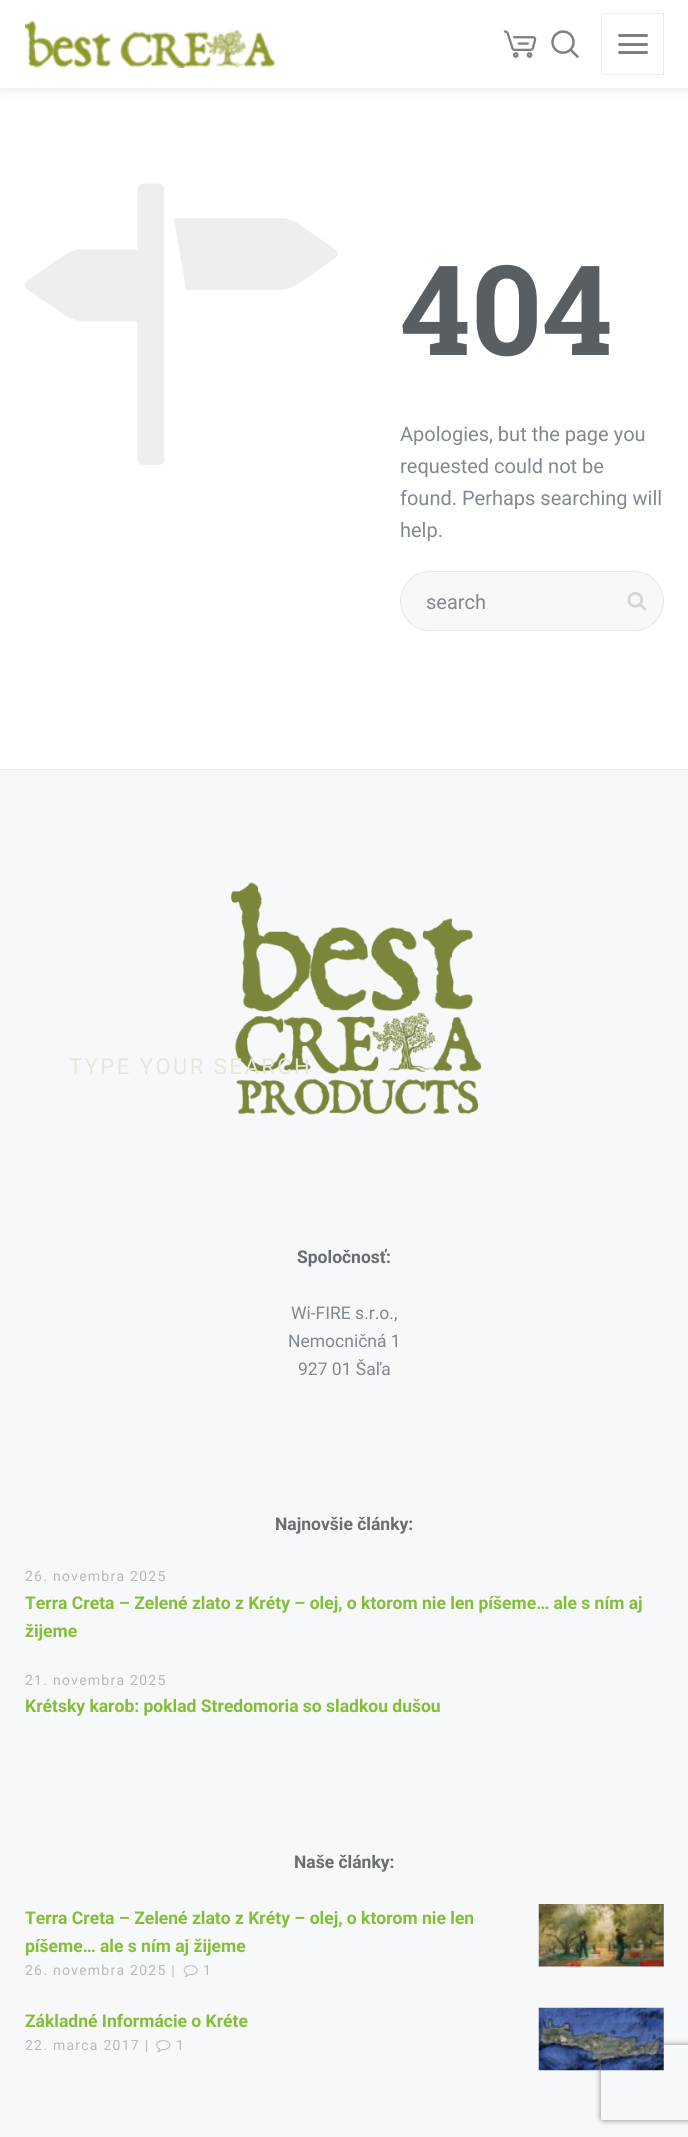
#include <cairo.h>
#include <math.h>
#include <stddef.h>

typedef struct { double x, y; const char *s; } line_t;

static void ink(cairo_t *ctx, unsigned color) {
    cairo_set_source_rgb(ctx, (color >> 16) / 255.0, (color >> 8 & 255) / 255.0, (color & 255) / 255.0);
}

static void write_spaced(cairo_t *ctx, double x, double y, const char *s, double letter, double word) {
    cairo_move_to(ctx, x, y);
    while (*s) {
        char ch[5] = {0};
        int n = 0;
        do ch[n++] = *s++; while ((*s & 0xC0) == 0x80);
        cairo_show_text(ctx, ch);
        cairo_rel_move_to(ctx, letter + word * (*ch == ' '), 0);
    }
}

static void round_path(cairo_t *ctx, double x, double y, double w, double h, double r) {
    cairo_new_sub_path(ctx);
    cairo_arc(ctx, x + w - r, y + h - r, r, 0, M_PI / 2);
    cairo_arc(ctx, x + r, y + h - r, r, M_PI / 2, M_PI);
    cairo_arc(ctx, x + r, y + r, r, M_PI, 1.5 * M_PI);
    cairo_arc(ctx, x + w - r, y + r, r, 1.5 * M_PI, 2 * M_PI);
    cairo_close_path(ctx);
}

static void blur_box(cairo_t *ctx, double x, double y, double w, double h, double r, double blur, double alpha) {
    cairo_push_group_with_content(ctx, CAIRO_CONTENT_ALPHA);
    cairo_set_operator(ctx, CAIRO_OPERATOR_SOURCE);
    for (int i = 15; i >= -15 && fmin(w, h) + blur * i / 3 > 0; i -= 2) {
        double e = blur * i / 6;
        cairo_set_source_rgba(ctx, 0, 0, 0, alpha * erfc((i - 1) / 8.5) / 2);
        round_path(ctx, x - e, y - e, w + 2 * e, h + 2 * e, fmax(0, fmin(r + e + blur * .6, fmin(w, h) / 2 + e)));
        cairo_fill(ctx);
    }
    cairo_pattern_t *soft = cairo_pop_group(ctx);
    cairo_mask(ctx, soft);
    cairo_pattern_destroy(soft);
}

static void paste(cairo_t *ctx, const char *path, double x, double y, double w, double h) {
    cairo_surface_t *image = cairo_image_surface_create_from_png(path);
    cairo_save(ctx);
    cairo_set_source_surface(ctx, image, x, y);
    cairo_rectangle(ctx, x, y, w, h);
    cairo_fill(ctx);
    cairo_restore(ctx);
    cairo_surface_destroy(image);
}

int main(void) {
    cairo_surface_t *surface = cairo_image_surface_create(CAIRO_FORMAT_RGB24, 688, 2137);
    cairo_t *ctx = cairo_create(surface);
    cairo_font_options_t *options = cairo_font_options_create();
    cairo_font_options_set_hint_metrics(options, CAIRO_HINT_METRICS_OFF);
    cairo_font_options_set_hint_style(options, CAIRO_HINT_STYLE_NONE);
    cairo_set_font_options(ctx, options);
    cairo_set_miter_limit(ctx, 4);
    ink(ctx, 0xFFFFFF);
    cairo_paint(ctx);
    ink(ctx, 0x000000);
    blur_box(ctx, 0, 0, 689, 88, 0, 6, 0.12);
    ink(ctx, 0xFFFFFF);
    cairo_rectangle(ctx, 0, 0, 688, 88);
    cairo_fill(ctx);
    paste(ctx, "media/1.png", 25, 21, 250, 47);
    paste(ctx, "media/2.png", 503, 30, 34, 28);
    paste(ctx, "media/3.png", 551, 30, 28, 28);
    cairo_rectangle(ctx, 601.5, 13.5, 62, 61);
    ink(ctx, 0xEDEDED);
    cairo_set_line_width(ctx, 1);
    cairo_stroke(ctx);
    ink(ctx, 0x808080);
    round_path(ctx, 618, 34, 30, 3, 1.5);
    cairo_fill(ctx);
    round_path(ctx, 618, 43, 30, 3, 1.5);
    cairo_fill(ctx);
    round_path(ctx, 618, 51, 30, 3, 1.5);
    cairo_fill(ctx);
    paste(ctx, "media/4.png", 25, 183, 313, 282);
    cairo_select_font_face(ctx, "Roboto Slab", CAIRO_FONT_SLANT_NORMAL, CAIRO_FONT_WEIGHT_BOLD);
    cairo_set_font_size(ctx, 125);
    ink(ctx, 0x585E61);
    cairo_move_to(ctx, 400, 355);
    cairo_show_text(ctx, "404");
    cairo_select_font_face(ctx, "Roboto", CAIRO_FONT_SLANT_NORMAL, CAIRO_FONT_WEIGHT_NORMAL);
    cairo_set_font_size(ctx, 20);
    ink(ctx, 0x808891);
    {
        static const line_t items[] = {
            {400, 441, "Apologies, but the page you"},
            {400, 473, "requested could not be"},
            {400, 505, "found. Perhaps searching will"},
            {400, 537, "help."},
        };
        for (size_t i = 0; i < sizeof items / sizeof *items; i++) {
            cairo_move_to(ctx, items[i].x, items[i].y);
            cairo_show_text(ctx, items[i].s);
        }
    }
    ink(ctx, 0xF7F8F9);
    round_path(ctx, 400.5, 571.5, 263, 59, 29.5);
    cairo_fill_preserve(ctx);
    ink(ctx, 0xE1E8EE);
    cairo_stroke(ctx);
    ink(ctx, 0x808891);
    cairo_move_to(ctx, 426, 609);
    cairo_show_text(ctx, "search");
    paste(ctx, "media/5.png", 627, 592, 19, 19);
    ink(ctx, 0xF7F8F9);
    cairo_rectangle(ctx, 0, 770, 688, 1367);
    cairo_fill(ctx);
    ink(ctx, 0xE1E8EE);
    cairo_rectangle(ctx, 0, 769, 688, 1);
    cairo_fill(ctx);
    paste(ctx, "media/6.png", 231, 882, 251, 234);
    cairo_select_font_face(ctx, "Roboto", CAIRO_FONT_SLANT_NORMAL, CAIRO_FONT_WEIGHT_BOLD);
    cairo_set_font_size(ctx, 17.5);
    ink(ctx, 0x666D73);
    cairo_move_to(ctx, 297, 1263);
    cairo_show_text(ctx, "Spoločnosť:");
    cairo_select_font_face(ctx, "Roboto", CAIRO_FONT_SLANT_NORMAL, CAIRO_FONT_WEIGHT_NORMAL);
    ink(ctx, 0x808891);
    {
        static const line_t items[] = {
            {291, 1319, "Wi-FIRE s.r.o.,"},
            {288, 1347, "Nemocničná 1"},
            {298, 1375, "927 01 Šaľa"},
        };
        for (size_t i = 0; i < sizeof items / sizeof *items; i++) {
            cairo_move_to(ctx, items[i].x, items[i].y);
            cairo_show_text(ctx, items[i].s);
        }
    }
    cairo_select_font_face(ctx, "Roboto", CAIRO_FONT_SLANT_NORMAL, CAIRO_FONT_WEIGHT_BOLD);
    ink(ctx, 0x666D73);
    cairo_move_to(ctx, 275, 1530);
    cairo_show_text(ctx, "Najnovšie články:");
    cairo_select_font_face(ctx, "Roboto", CAIRO_FONT_SLANT_NORMAL, CAIRO_FONT_WEIGHT_NORMAL);
    cairo_set_font_size(ctx, 14);
    ink(ctx, 0xB9B9B9);
    write_spaced(ctx, 25, 1581, "26. novembra 2025", 1.25, 0);
    cairo_select_font_face(ctx, "Roboto", CAIRO_FONT_SLANT_NORMAL, CAIRO_FONT_WEIGHT_BOLD);
    cairo_set_font_size(ctx, 17.5);
    ink(ctx, 0x84BE38);
    cairo_move_to(ctx, 25, 1609);
    cairo_show_text(ctx, "Terra Creta – Zelené zlato z Kréty – olej, o ktorom nie len píšeme… ale s ním aj");
    cairo_move_to(ctx, 25, 1637);
    cairo_show_text(ctx, "žijeme");
    cairo_select_font_face(ctx, "Roboto", CAIRO_FONT_SLANT_NORMAL, CAIRO_FONT_WEIGHT_NORMAL);
    cairo_set_font_size(ctx, 14);
    ink(ctx, 0xB9B9B9);
    write_spaced(ctx, 25, 1685, "21. novembra 2025", 1.25, 0);
    cairo_select_font_face(ctx, "Roboto", CAIRO_FONT_SLANT_NORMAL, CAIRO_FONT_WEIGHT_BOLD);
    cairo_set_font_size(ctx, 17.5);
    ink(ctx, 0x84BE38);
    cairo_move_to(ctx, 25, 1712);
    cairo_show_text(ctx, "Krétsky karob: poklad Stredomoria so sladkou dušou");
    ink(ctx, 0x666D73);
    cairo_move_to(ctx, 294, 1868);
    cairo_show_text(ctx, "Naše články:");
    ink(ctx, 0x84BE38);
    cairo_move_to(ctx, 25, 1924);
    cairo_show_text(ctx, "Terra Creta – Zelené zlato z Kréty – olej, o ktorom nie len");
    paste(ctx, "media/7.png", 538, 1904, 126, 63);
    cairo_move_to(ctx, 25, 1952);
    cairo_show_text(ctx, "píšeme… ale s ním aj žijeme");
    cairo_select_font_face(ctx, "Roboto", CAIRO_FONT_SLANT_NORMAL, CAIRO_FONT_WEIGHT_NORMAL);
    cairo_set_font_size(ctx, 14);
    ink(ctx, 0xB9B9B9);
    write_spaced(ctx, 25, 1975, "26. novembra 2025 |", 1.25, 0);
    paste(ctx, "media/8.png", 183, 1965, 15, 12);
    write_spaced(ctx, 203, 1975, "1", 1.25, 0);
    cairo_select_font_face(ctx, "Roboto", CAIRO_FONT_SLANT_NORMAL, CAIRO_FONT_WEIGHT_BOLD);
    cairo_set_font_size(ctx, 17.5);
    ink(ctx, 0x84BE38);
    cairo_move_to(ctx, 25, 2027);
    cairo_show_text(ctx, "Základné Informácie o Kréte");
    paste(ctx, "media/9.png", 538, 2007, 126, 64);
    cairo_select_font_face(ctx, "Roboto", CAIRO_FONT_SLANT_NORMAL, CAIRO_FONT_WEIGHT_NORMAL);
    cairo_set_font_size(ctx, 14);
    ink(ctx, 0xB9B9B9);
    write_spaced(ctx, 25, 2050, "22. marca 2017 |", 1.25, 0);
    paste(ctx, "media/10.png", 156, 2040, 15, 12);
    write_spaced(ctx, 176, 2050, "1", 1.25, 0);
    cairo_set_font_size(ctx, 22);
    ink(ctx, 0xE5E7DD);
    write_spaced(ctx, 69, 1074, "TYPE YOUR SEARCH", 2.5, 0);
    cairo_save(ctx);
    cairo_set_fill_rule(ctx, CAIRO_FILL_RULE_EVEN_ODD);
    cairo_new_path(ctx);
    cairo_move_to(ctx, 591, 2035);
    cairo_line_to(ctx, 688, 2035);
    cairo_line_to(ctx, 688, 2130);
    cairo_line_to(ctx, 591, 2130);
    cairo_close_path(ctx);
    cairo_move_to(ctx, 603.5, 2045);
    cairo_line_to(ctx, 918.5, 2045);
    cairo_curve_to(ctx, 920, 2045, 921, 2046, 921, 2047.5);
    cairo_line_to(ctx, 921, 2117.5);
    cairo_curve_to(ctx, 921, 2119, 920, 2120, 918.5, 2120);
    cairo_line_to(ctx, 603.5, 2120);
    cairo_curve_to(ctx, 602, 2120, 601, 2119, 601, 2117.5);
    cairo_line_to(ctx, 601, 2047.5);
    cairo_curve_to(ctx, 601, 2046, 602, 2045, 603.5, 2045);
    cairo_close_path(ctx);
    cairo_clip(ctx);
    ink(ctx, 0x808080);
    blur_box(ctx, 601, 2045, 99, 75, 2.5, 3, 1);
    cairo_restore(ctx);
    cairo_surface_write_to_png(surface, "image.png");
    cairo_font_options_destroy(options);
    cairo_destroy(ctx);
    cairo_surface_destroy(surface);
    return 0;
}
